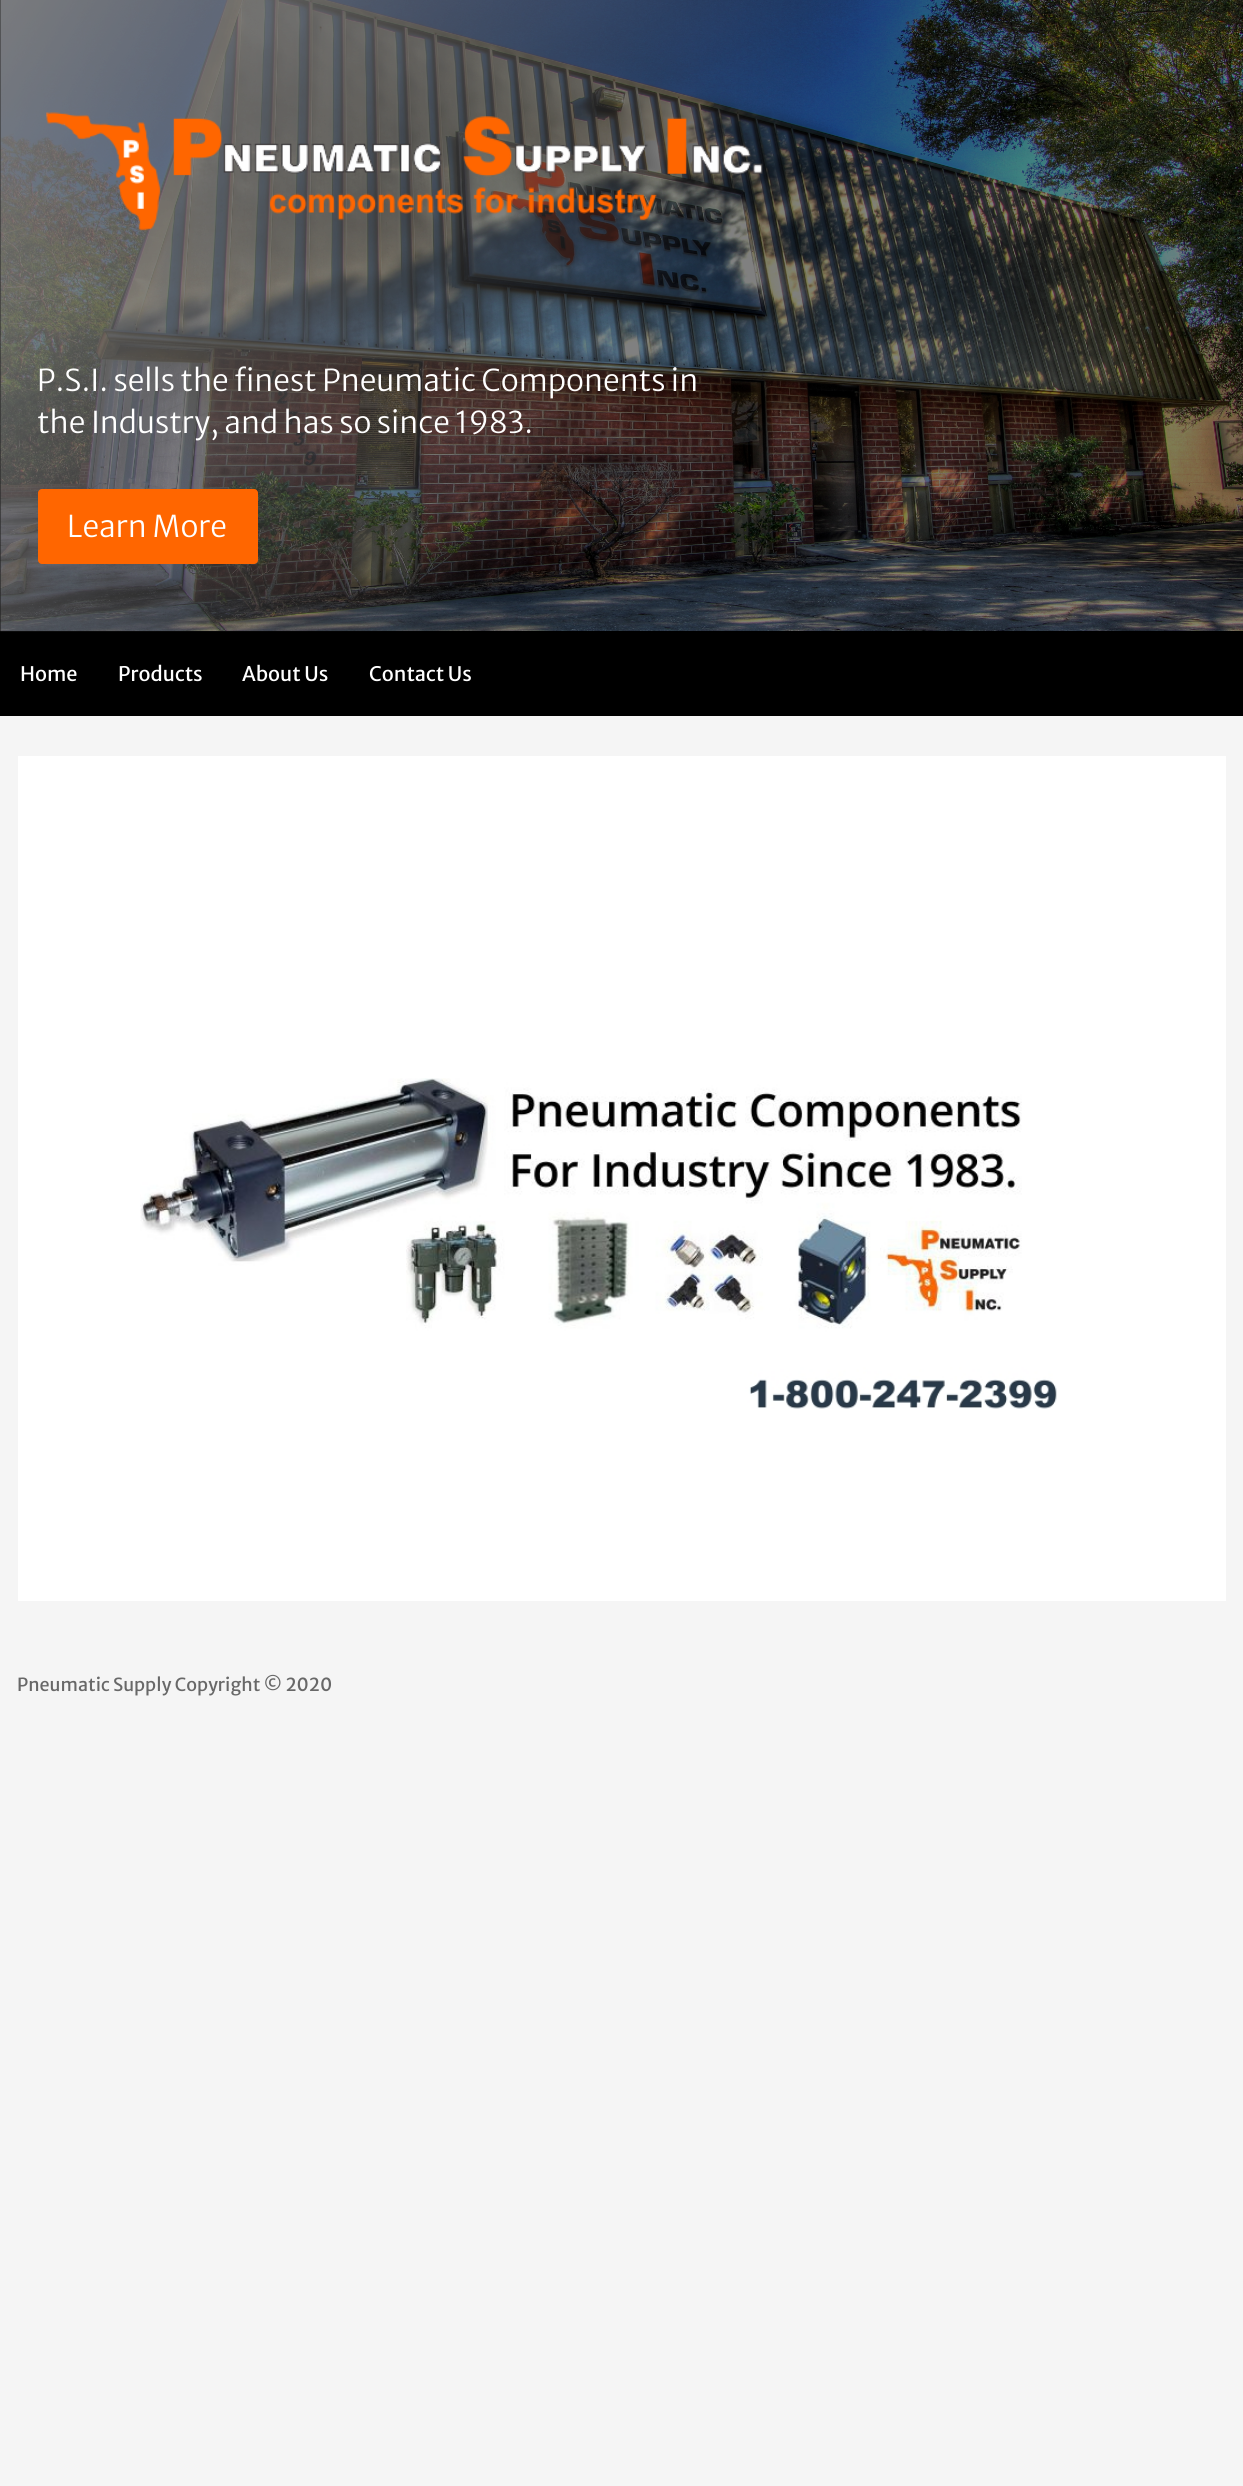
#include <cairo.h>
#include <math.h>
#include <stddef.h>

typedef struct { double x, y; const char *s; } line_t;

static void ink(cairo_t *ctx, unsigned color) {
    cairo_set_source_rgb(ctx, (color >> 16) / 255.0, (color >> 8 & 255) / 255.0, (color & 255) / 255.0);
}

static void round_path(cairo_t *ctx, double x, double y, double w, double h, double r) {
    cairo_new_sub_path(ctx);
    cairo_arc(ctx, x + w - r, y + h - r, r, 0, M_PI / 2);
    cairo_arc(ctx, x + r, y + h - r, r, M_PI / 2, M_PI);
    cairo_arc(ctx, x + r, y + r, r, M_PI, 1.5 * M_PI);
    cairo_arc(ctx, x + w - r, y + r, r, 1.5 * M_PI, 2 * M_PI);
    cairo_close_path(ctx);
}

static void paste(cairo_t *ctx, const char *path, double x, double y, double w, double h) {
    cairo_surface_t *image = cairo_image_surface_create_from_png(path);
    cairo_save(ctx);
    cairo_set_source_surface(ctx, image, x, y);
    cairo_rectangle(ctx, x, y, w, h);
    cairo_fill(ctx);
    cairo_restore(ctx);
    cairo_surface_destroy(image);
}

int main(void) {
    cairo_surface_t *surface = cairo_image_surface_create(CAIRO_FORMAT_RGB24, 1243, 2486);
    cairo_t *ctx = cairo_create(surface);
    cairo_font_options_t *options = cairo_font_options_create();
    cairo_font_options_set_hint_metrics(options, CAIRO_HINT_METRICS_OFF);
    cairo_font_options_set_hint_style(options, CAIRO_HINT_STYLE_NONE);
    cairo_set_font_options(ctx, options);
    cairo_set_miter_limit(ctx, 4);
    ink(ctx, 0xF5F5F5);
    cairo_paint(ctx);
    ink(ctx, 0x000000);
    cairo_rectangle(ctx, 0, 0, 1, 631);
    cairo_fill(ctx);
    cairo_rectangle(ctx, 0, 631, 1243, 85);
    cairo_fill(ctx);
    paste(ctx, "media/1.png", 0, 0, 1243, 632);
    paste(ctx, "media/2.png", 46, 112, 717, 119);
    cairo_select_font_face(ctx, "Merriweather Sans Light", CAIRO_FONT_SLANT_NORMAL, CAIRO_FONT_WEIGHT_NORMAL);
    cairo_set_font_size(ctx, 30);
    ink(ctx, 0xFFFFFF);
    cairo_move_to(ctx, 37, 391);
    cairo_show_text(ctx, "P.S.I. sells the finest Pneumatic Components in");
    cairo_move_to(ctx, 37, 433);
    cairo_show_text(ctx, "the Industry, and has so since 1983.");
    ink(ctx, 0xFF6600);
    round_path(ctx, 38, 489, 220, 75, 4);
    cairo_fill(ctx);
    ink(ctx, 0xFFFFFF);
    cairo_move_to(ctx, 67, 537);
    cairo_show_text(ctx, "Learn More");
    cairo_select_font_face(ctx, "Merriweather Sans", CAIRO_FONT_SLANT_NORMAL, CAIRO_FONT_WEIGHT_NORMAL);
    cairo_set_font_size(ctx, 20);
    {
        static const line_t items[] = {
            {20, 681, "Home"},
            {118, 681, "Products"},
            {242, 681, "About Us"},
            {369, 681, "Contact Us"},
        };
        for (size_t i = 0; i < sizeof items / sizeof *items; i++) {
            cairo_move_to(ctx, items[i].x, items[i].y);
            cairo_show_text(ctx, items[i].s);
        }
    }
    cairo_rectangle(ctx, 18, 756, 1208, 845);
    cairo_fill(ctx);
    paste(ctx, "media/3.png", 140, 1078, 917, 331);
    cairo_set_font_size(ctx, 18);
    ink(ctx, 0x686868);
    cairo_move_to(ctx, 17, 1691);
    cairo_show_text(ctx, "Pneumatic Supply Copyright © 2020");
    cairo_surface_write_to_png(surface, "image.png");
    cairo_font_options_destroy(options);
    cairo_destroy(ctx);
    cairo_surface_destroy(surface);
    return 0;
}
